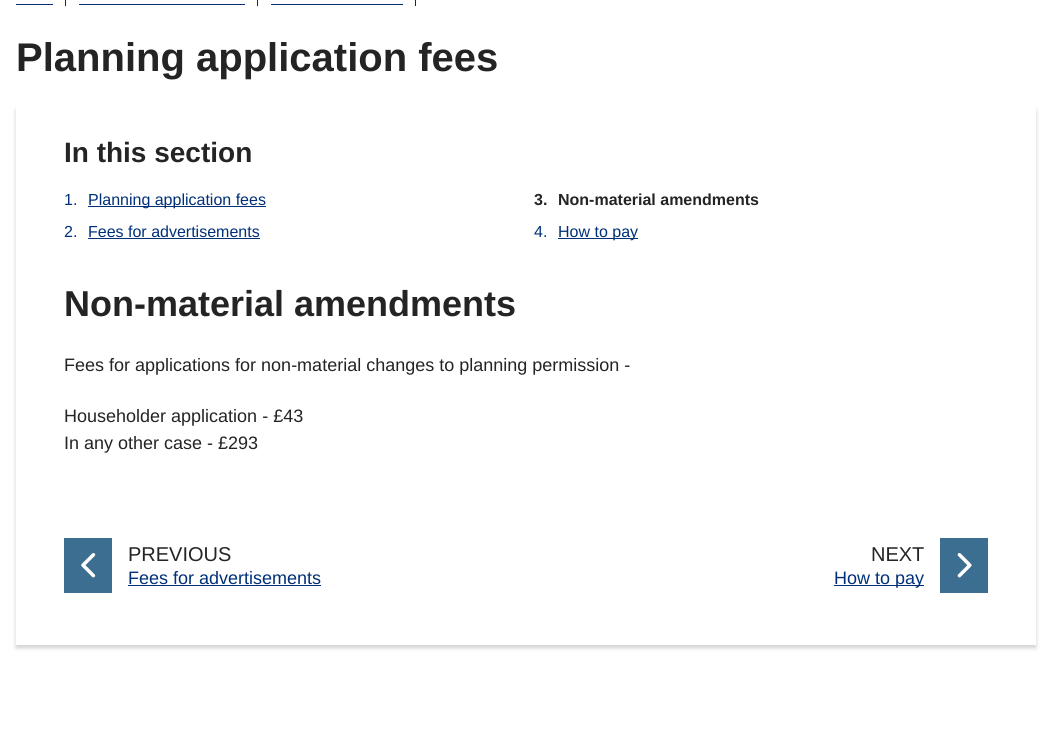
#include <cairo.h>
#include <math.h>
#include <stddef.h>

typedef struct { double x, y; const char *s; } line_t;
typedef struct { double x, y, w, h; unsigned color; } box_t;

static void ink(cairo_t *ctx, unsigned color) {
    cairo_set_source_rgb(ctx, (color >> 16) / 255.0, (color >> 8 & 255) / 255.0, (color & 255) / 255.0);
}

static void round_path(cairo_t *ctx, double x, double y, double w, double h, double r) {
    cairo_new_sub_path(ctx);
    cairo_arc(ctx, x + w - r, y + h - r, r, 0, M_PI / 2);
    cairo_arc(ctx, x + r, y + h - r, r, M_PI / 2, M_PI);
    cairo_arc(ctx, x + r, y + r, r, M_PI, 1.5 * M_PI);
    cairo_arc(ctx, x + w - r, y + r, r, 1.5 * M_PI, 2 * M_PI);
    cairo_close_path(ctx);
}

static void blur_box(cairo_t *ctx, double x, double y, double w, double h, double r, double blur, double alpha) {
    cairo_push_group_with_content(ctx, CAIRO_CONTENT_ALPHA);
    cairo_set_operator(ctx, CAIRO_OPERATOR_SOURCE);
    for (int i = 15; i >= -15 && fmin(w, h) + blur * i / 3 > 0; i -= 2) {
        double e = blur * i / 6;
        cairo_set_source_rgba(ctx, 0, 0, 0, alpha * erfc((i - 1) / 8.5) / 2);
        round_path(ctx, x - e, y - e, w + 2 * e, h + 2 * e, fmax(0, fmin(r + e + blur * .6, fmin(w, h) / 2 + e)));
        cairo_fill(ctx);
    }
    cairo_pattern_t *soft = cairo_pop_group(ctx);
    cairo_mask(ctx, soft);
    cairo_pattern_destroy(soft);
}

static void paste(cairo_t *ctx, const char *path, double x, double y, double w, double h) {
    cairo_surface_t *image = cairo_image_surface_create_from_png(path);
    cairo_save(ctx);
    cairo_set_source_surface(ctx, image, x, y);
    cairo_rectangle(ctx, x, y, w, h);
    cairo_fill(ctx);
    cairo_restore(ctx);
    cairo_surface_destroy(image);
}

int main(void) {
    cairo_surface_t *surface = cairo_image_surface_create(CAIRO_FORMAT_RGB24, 1052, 729);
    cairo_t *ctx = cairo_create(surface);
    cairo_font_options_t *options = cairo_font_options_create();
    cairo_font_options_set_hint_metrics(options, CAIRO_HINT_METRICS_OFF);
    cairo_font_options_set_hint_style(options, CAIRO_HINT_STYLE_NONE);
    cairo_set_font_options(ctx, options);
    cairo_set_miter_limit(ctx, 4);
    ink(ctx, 0xFFFFFF);
    cairo_paint(ctx);
    {
        static const box_t items[] = {
            {16, 4, 37, 1, 0x003078},
            {65, 0, 1, 6, 0x242424},
            {79, 4, 166, 1, 0x003078},
            {257, 0, 1, 6, 0x242424},
            {271, 4, 132, 1, 0x003078},
            {415, 0, 1, 6, 0x242424},
        };
        for (size_t i = 0; i < sizeof items / sizeof *items; i++) {
            ink(ctx, items[i].color);
            cairo_rectangle(ctx, items[i].x, items[i].y, items[i].w, items[i].h);
            cairo_fill(ctx);
        }
    }
    cairo_select_font_face(ctx, "Liberation Sans", CAIRO_FONT_SLANT_NORMAL, CAIRO_FONT_WEIGHT_BOLD);
    cairo_set_font_size(ctx, 40);
    cairo_move_to(ctx, 16, 71);
    cairo_show_text(ctx, "Planning application fees");
    cairo_save(ctx);
    cairo_set_fill_rule(ctx, CAIRO_FILL_RULE_EVEN_ODD);
    cairo_new_path(ctx);
    cairo_move_to(ctx, 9, 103);
    cairo_line_to(ctx, 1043, 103);
    cairo_line_to(ctx, 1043, 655);
    cairo_line_to(ctx, 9, 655);
    cairo_close_path(ctx);
    cairo_move_to(ctx, 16, 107);
    cairo_line_to(ctx, 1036, 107);
    cairo_line_to(ctx, 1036, 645);
    cairo_line_to(ctx, 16, 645);
    cairo_close_path(ctx);
    cairo_clip(ctx);
    ink(ctx, 0x616365);
    blur_box(ctx, 16, 110, 1020, 538, 0, 2, 0.3);
    cairo_restore(ctx);
    cairo_set_font_size(ctx, 28);
    cairo_move_to(ctx, 64, 162);
    cairo_show_text(ctx, "In this section");
    cairo_select_font_face(ctx, "Liberation Sans", CAIRO_FONT_SLANT_NORMAL, CAIRO_FONT_WEIGHT_NORMAL);
    cairo_set_font_size(ctx, 16);
    ink(ctx, 0x003078);
    cairo_move_to(ctx, 64, 205);
    cairo_show_text(ctx, "1.");
    cairo_rectangle(ctx, 88, 206, 178, 1);
    cairo_fill(ctx);
    cairo_move_to(ctx, 88, 205);
    cairo_show_text(ctx, "Planning application fees");
    cairo_select_font_face(ctx, "Liberation Sans", CAIRO_FONT_SLANT_NORMAL, CAIRO_FONT_WEIGHT_BOLD);
    ink(ctx, 0x242424);
    cairo_move_to(ctx, 534, 205);
    cairo_show_text(ctx, "3.");
    cairo_move_to(ctx, 558, 205);
    cairo_show_text(ctx, "Non-material amendments");
    cairo_select_font_face(ctx, "Liberation Sans", CAIRO_FONT_SLANT_NORMAL, CAIRO_FONT_WEIGHT_NORMAL);
    ink(ctx, 0x003078);
    cairo_move_to(ctx, 64, 237);
    cairo_show_text(ctx, "2.");
    cairo_move_to(ctx, 88, 237);
    cairo_show_text(ctx, "Fees for advertisements");
    cairo_rectangle(ctx, 88, 238, 172, 1);
    cairo_fill(ctx);
    cairo_move_to(ctx, 534, 237);
    cairo_show_text(ctx, "4.");
    cairo_rectangle(ctx, 558, 238, 80, 1);
    cairo_fill(ctx);
    cairo_move_to(ctx, 558, 237);
    cairo_show_text(ctx, "How to pay");
    cairo_select_font_face(ctx, "Liberation Sans", CAIRO_FONT_SLANT_NORMAL, CAIRO_FONT_WEIGHT_BOLD);
    cairo_set_font_size(ctx, 36);
    ink(ctx, 0x242424);
    cairo_move_to(ctx, 64, 316);
    cairo_show_text(ctx, "Non-material amendments");
    cairo_select_font_face(ctx, "Liberation Sans", CAIRO_FONT_SLANT_NORMAL, CAIRO_FONT_WEIGHT_NORMAL);
    cairo_set_font_size(ctx, 18);
    {
        static const line_t items[] = {
            {64, 371, "Fees for applications for non-material changes to planning permission -"},
            {64, 422, "Householder application - £43"},
            {64, 449, "In any other case - £293"},
        };
        for (size_t i = 0; i < sizeof items / sizeof *items; i++) {
            cairo_move_to(ctx, items[i].x, items[i].y);
            cairo_show_text(ctx, items[i].s);
        }
    }
    ink(ctx, 0x3C6E91);
    cairo_rectangle(ctx, 64, 538, 48, 55);
    cairo_fill(ctx);
    paste(ctx, "media/1.png", 81, 553, 15, 25);
    cairo_set_font_size(ctx, 20);
    ink(ctx, 0x242424);
    cairo_move_to(ctx, 128, 561);
    cairo_show_text(ctx, "PREVIOUS");
    cairo_set_font_size(ctx, 18);
    ink(ctx, 0x003078);
    cairo_move_to(ctx, 128, 584);
    cairo_show_text(ctx, "Fees for advertisements");
    cairo_rectangle(ctx, 128, 585, 193, 1);
    cairo_fill(ctx);
    cairo_set_font_size(ctx, 20);
    ink(ctx, 0x242424);
    cairo_move_to(ctx, 871, 561);
    cairo_show_text(ctx, "NEXT");
    ink(ctx, 0x003078);
    cairo_rectangle(ctx, 834, 585, 90, 1);
    cairo_fill(ctx);
    cairo_set_font_size(ctx, 18);
    cairo_move_to(ctx, 834, 584);
    cairo_show_text(ctx, "How to pay");
    ink(ctx, 0x3C6E91);
    cairo_rectangle(ctx, 940, 538, 48, 55);
    cairo_fill(ctx);
    paste(ctx, "media/2.png", 957, 553, 15, 25);
    cairo_surface_write_to_png(surface, "image.png");
    cairo_font_options_destroy(options);
    cairo_destroy(ctx);
    cairo_surface_destroy(surface);
    return 0;
}
